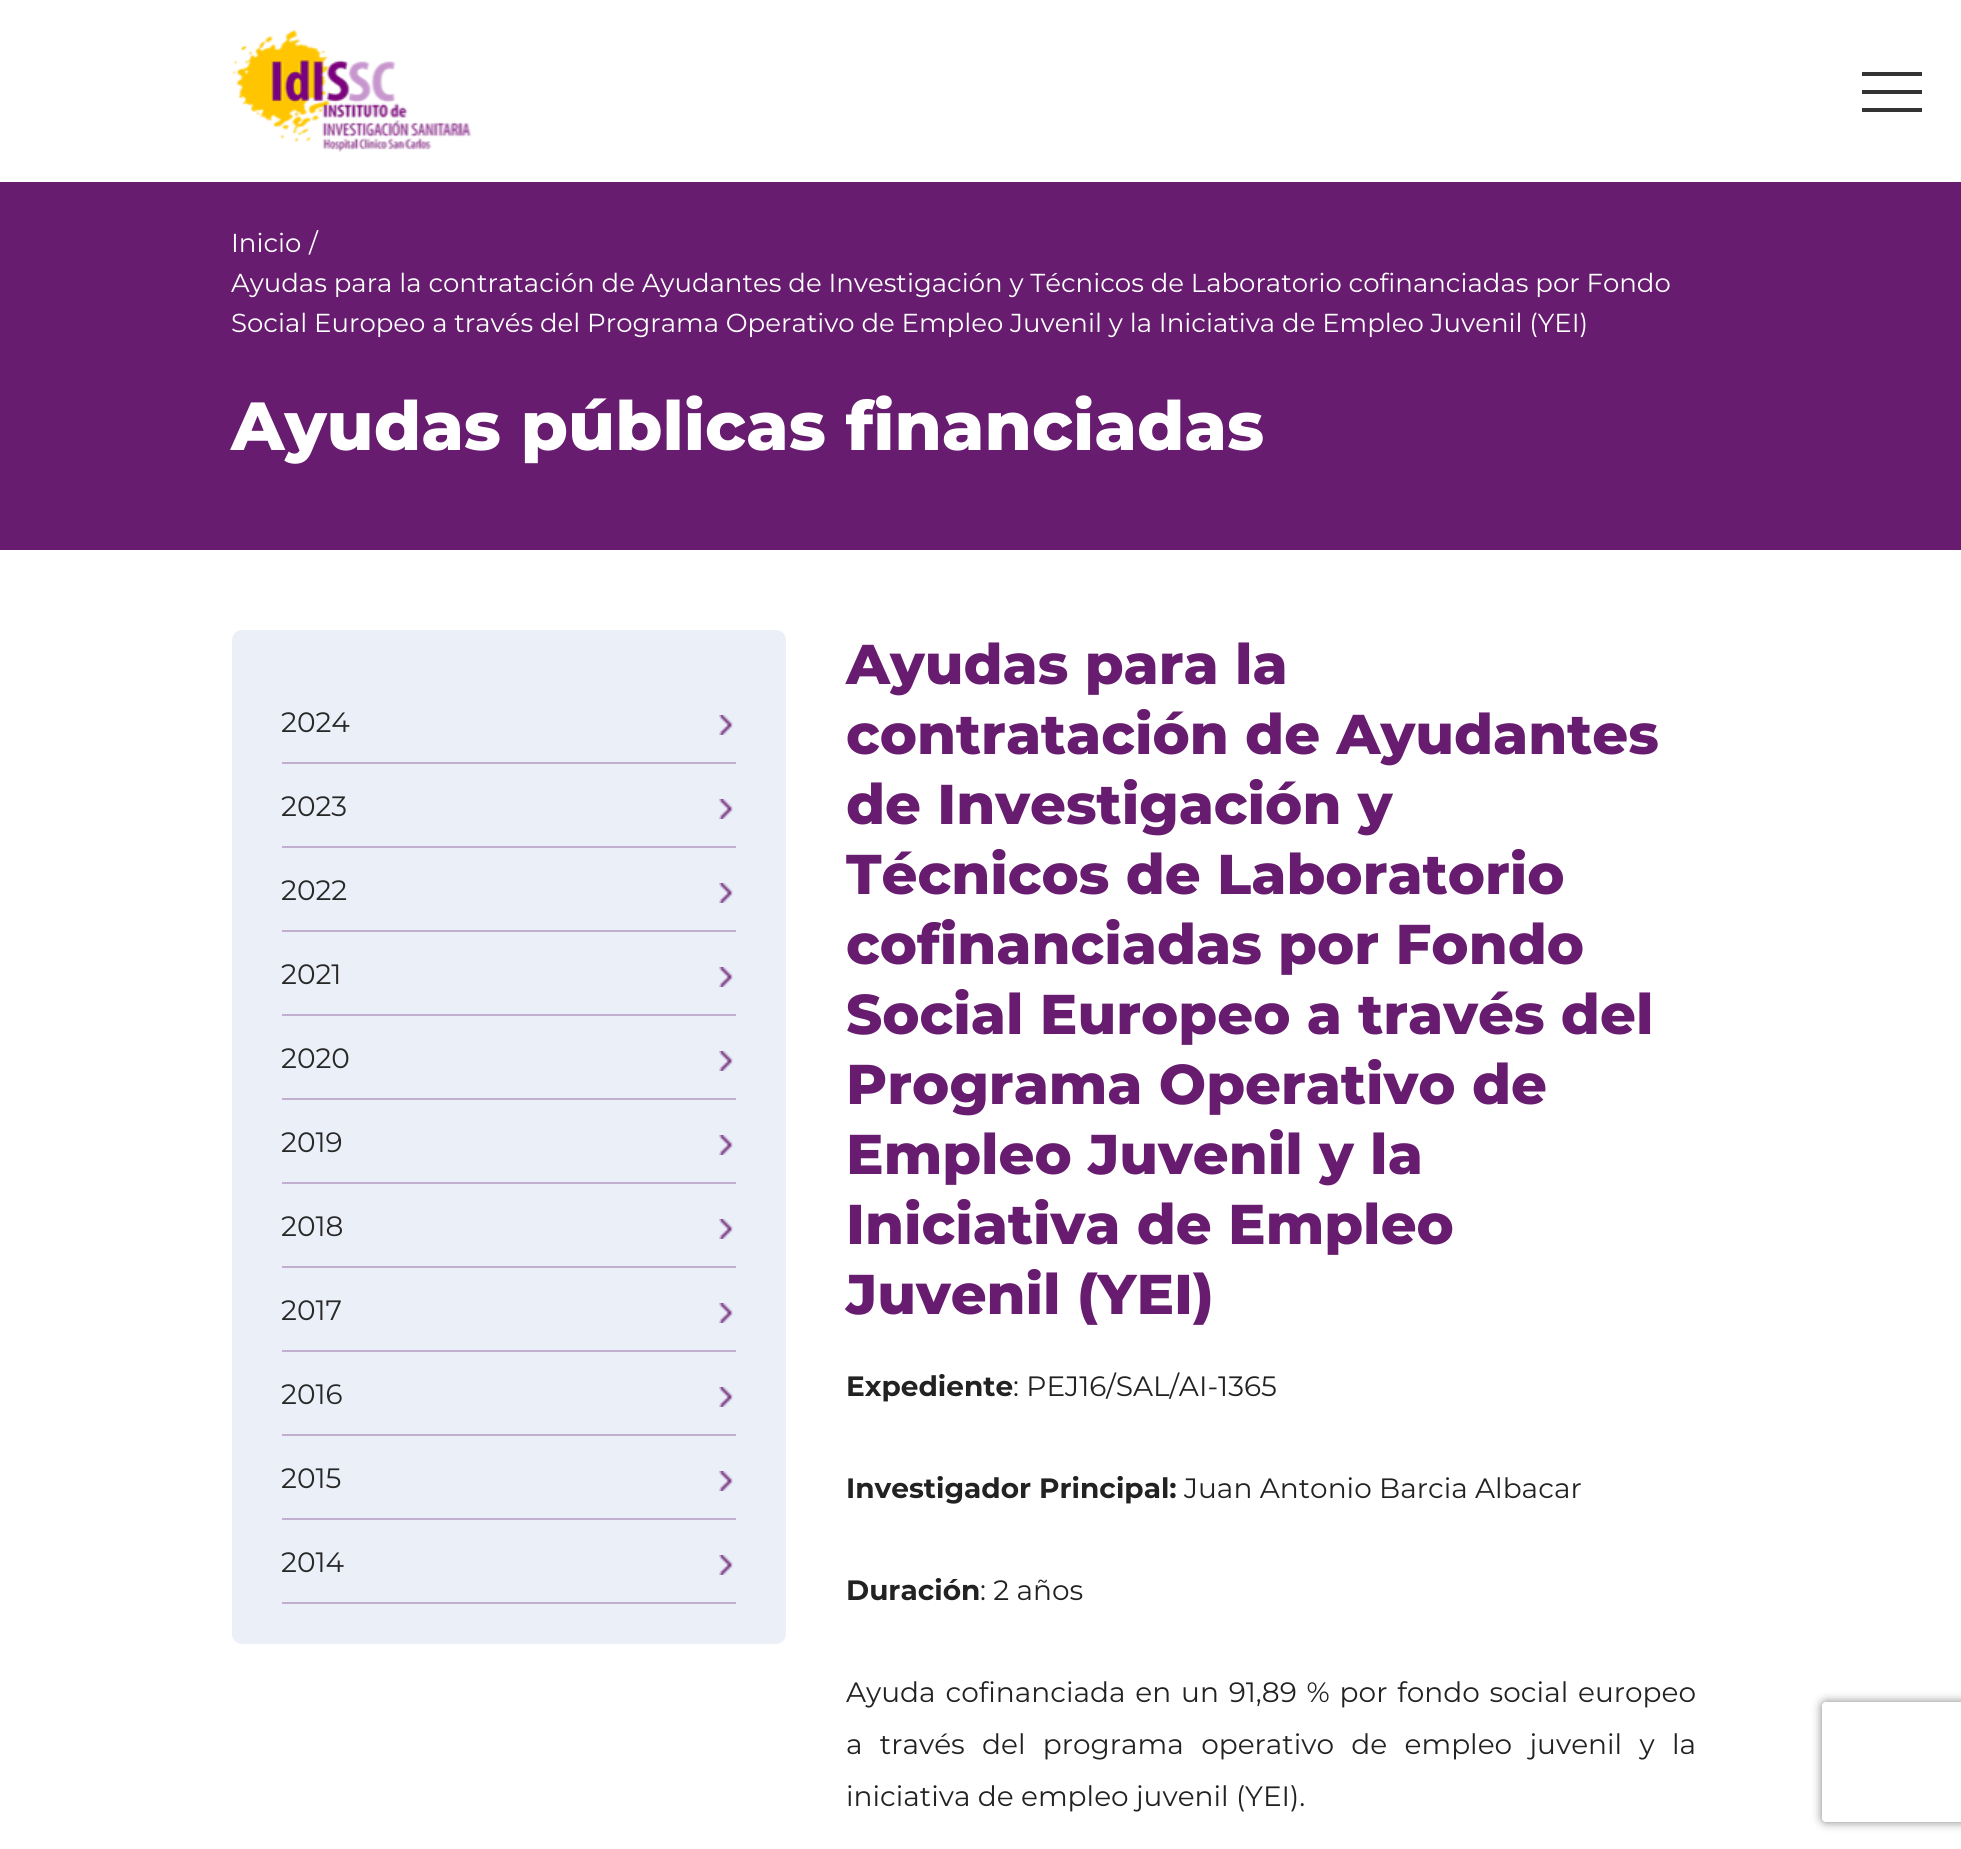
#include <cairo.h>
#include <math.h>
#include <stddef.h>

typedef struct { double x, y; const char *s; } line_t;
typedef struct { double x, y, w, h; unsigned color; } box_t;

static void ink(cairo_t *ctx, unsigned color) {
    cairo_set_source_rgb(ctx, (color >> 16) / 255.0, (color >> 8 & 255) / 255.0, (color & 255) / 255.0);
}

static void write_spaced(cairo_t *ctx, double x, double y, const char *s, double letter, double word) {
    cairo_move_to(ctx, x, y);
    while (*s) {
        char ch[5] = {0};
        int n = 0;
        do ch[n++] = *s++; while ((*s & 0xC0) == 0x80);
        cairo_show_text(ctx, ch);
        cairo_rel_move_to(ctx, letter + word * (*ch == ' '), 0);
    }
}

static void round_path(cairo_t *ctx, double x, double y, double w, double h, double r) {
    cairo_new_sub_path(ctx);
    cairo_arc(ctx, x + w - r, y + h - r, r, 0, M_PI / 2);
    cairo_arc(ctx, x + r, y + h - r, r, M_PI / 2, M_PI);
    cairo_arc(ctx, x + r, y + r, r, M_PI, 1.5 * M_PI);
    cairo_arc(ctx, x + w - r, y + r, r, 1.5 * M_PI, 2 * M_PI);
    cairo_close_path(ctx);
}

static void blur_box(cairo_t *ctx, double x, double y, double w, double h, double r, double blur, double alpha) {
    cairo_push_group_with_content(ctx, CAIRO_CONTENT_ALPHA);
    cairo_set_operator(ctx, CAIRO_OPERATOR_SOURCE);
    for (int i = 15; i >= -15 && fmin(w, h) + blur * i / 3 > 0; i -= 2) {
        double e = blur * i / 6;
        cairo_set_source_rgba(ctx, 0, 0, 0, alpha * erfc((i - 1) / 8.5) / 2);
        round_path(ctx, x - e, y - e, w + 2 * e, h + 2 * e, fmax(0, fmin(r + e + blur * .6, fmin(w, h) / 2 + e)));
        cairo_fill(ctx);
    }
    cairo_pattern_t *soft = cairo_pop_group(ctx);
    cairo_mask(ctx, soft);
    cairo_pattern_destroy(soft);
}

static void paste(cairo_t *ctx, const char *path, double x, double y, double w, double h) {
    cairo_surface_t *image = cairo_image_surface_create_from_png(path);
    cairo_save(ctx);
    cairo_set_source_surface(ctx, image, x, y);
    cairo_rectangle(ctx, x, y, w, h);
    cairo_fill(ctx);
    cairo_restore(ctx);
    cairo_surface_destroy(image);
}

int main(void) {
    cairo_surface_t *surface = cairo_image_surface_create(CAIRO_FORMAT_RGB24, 1961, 1849);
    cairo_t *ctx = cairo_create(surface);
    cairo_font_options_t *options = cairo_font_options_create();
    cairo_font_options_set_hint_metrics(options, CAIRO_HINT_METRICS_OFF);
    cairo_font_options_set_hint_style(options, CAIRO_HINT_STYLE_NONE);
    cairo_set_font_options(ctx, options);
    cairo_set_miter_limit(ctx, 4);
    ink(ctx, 0xFFFFFF);
    cairo_paint(ctx);
    paste(ctx, "media/1.png", 232, 30, 240, 122);
    {
        static const box_t items[] = {
            {1862, 72, 60, 4, 0x333333},
            {1862, 90, 60, 4, 0x333333},
            {1862, 108, 60, 4, 0x333333},
            {0, 182, 1961, 368, 0x671C6F},
        };
        for (size_t i = 0; i < sizeof items / sizeof *items; i++) {
            ink(ctx, items[i].color);
            cairo_rectangle(ctx, items[i].x, items[i].y, items[i].w, items[i].h);
            cairo_fill(ctx);
        }
    }
    cairo_select_font_face(ctx, "Montserrat", CAIRO_FONT_SLANT_NORMAL, CAIRO_FONT_WEIGHT_NORMAL);
    cairo_set_font_size(ctx, 26);
    ink(ctx, 0xFFFFFF);
    {
        static const line_t items[] = {
            {231, 252, "Inicio"},
            {309, 252, "/"},
            {231, 292, "Ayudas para la contratación de Ayudantes de Investigación y Técnicos de Laboratorio cofinanciadas por Fondo"},
            {231, 332, "Social Europeo a través del Programa Operativo de Empleo Juvenil y la Iniciativa de Empleo Juvenil (YEI)"},
        };
        for (size_t i = 0; i < sizeof items / sizeof *items; i++) {
            cairo_move_to(ctx, items[i].x, items[i].y);
            cairo_show_text(ctx, items[i].s);
        }
    }
    cairo_select_font_face(ctx, "Montserrat ExtraBold", CAIRO_FONT_SLANT_NORMAL, CAIRO_FONT_WEIGHT_NORMAL);
    cairo_set_font_size(ctx, 68);
    cairo_move_to(ctx, 231, 450);
    cairo_show_text(ctx, "Ayudas públicas financiadas");
    ink(ctx, 0xEBEFF8);
    round_path(ctx, 232, 630, 554, 1014, 10);
    cairo_fill(ctx);
    ink(ctx, 0xC2AFCF);
    cairo_rectangle(ctx, 282, 762, 454, 2);
    cairo_fill(ctx);
    cairo_select_font_face(ctx, "Montserrat", CAIRO_FONT_SLANT_NORMAL, CAIRO_FONT_WEIGHT_NORMAL);
    cairo_set_font_size(ctx, 28);
    ink(ctx, 0x282828);
    cairo_move_to(ctx, 281, 732);
    cairo_show_text(ctx, "2024");
    paste(ctx, "media/2.png", 719, 715, 14, 20);
    ink(ctx, 0xC2AFCF);
    cairo_rectangle(ctx, 282, 846, 454, 2);
    cairo_fill(ctx);
    ink(ctx, 0x282828);
    cairo_move_to(ctx, 281, 816);
    cairo_show_text(ctx, "2023");
    paste(ctx, "media/2.png", 719, 799, 14, 20);
    ink(ctx, 0xC2AFCF);
    cairo_rectangle(ctx, 282, 930, 454, 2);
    cairo_fill(ctx);
    ink(ctx, 0x282828);
    cairo_move_to(ctx, 281, 900);
    cairo_show_text(ctx, "2022");
    paste(ctx, "media/2.png", 719, 883, 14, 20);
    ink(ctx, 0xC2AFCF);
    cairo_rectangle(ctx, 282, 1014, 454, 2);
    cairo_fill(ctx);
    ink(ctx, 0x282828);
    cairo_move_to(ctx, 281, 984);
    cairo_show_text(ctx, "2021");
    paste(ctx, "media/2.png", 719, 967, 14, 20);
    ink(ctx, 0xC2AFCF);
    cairo_rectangle(ctx, 282, 1098, 454, 2);
    cairo_fill(ctx);
    ink(ctx, 0x282828);
    cairo_move_to(ctx, 281, 1068);
    cairo_show_text(ctx, "2020");
    paste(ctx, "media/2.png", 719, 1051, 14, 20);
    ink(ctx, 0xC2AFCF);
    cairo_rectangle(ctx, 282, 1182, 454, 2);
    cairo_fill(ctx);
    ink(ctx, 0x282828);
    cairo_move_to(ctx, 281, 1152);
    cairo_show_text(ctx, "2019");
    paste(ctx, "media/2.png", 719, 1135, 14, 20);
    ink(ctx, 0xC2AFCF);
    cairo_rectangle(ctx, 282, 1266, 454, 2);
    cairo_fill(ctx);
    ink(ctx, 0x282828);
    cairo_move_to(ctx, 281, 1236);
    cairo_show_text(ctx, "2018");
    paste(ctx, "media/2.png", 719, 1219, 14, 20);
    ink(ctx, 0xC2AFCF);
    cairo_rectangle(ctx, 282, 1350, 454, 2);
    cairo_fill(ctx);
    ink(ctx, 0x282828);
    cairo_move_to(ctx, 281, 1320);
    cairo_show_text(ctx, "2017");
    paste(ctx, "media/2.png", 719, 1303, 14, 20);
    ink(ctx, 0xC2AFCF);
    cairo_rectangle(ctx, 282, 1434, 454, 2);
    cairo_fill(ctx);
    ink(ctx, 0x282828);
    cairo_move_to(ctx, 281, 1404);
    cairo_show_text(ctx, "2016");
    paste(ctx, "media/2.png", 719, 1387, 14, 20);
    ink(ctx, 0xC2AFCF);
    cairo_rectangle(ctx, 282, 1518, 454, 2);
    cairo_fill(ctx);
    ink(ctx, 0x282828);
    cairo_move_to(ctx, 281, 1488);
    cairo_show_text(ctx, "2015");
    paste(ctx, "media/2.png", 719, 1471, 14, 20);
    ink(ctx, 0xC2AFCF);
    cairo_rectangle(ctx, 282, 1602, 454, 2);
    cairo_fill(ctx);
    ink(ctx, 0x282828);
    cairo_move_to(ctx, 281, 1572);
    cairo_show_text(ctx, "2014");
    paste(ctx, "media/2.png", 719, 1555, 14, 20);
    cairo_select_font_face(ctx, "Montserrat ExtraBold", CAIRO_FONT_SLANT_NORMAL, CAIRO_FONT_WEIGHT_NORMAL);
    cairo_set_font_size(ctx, 56);
    ink(ctx, 0x671C6F);
    {
        static const line_t items[] = {
            {846, 684, "Ayudas para la"},
            {846, 754, "contratación de Ayudantes"},
            {846, 824, "de Investigación y"},
            {846, 894, "Técnicos de Laboratorio"},
            {846, 964, "cofinanciadas por Fondo"},
            {846, 1034, "Social Europeo a través del"},
            {846, 1104, "Programa Operativo de"},
            {846, 1174, "Empleo Juvenil y la"},
            {846, 1244, "Iniciativa de Empleo"},
            {846, 1314, "Juvenil (YEI)"},
        };
        for (size_t i = 0; i < sizeof items / sizeof *items; i++) {
            cairo_move_to(ctx, items[i].x, items[i].y);
            cairo_show_text(ctx, items[i].s);
        }
    }
    cairo_select_font_face(ctx, "Montserrat", CAIRO_FONT_SLANT_NORMAL, CAIRO_FONT_WEIGHT_BOLD);
    cairo_set_font_size(ctx, 28);
    ink(ctx, 0x222222);
    cairo_move_to(ctx, 846, 1396);
    cairo_show_text(ctx, "Expediente");
    cairo_select_font_face(ctx, "Montserrat", CAIRO_FONT_SLANT_NORMAL, CAIRO_FONT_WEIGHT_NORMAL);
    cairo_move_to(ctx, 1013, 1396);
    cairo_show_text(ctx, ": PEJ16/SAL/AI-1365");
    cairo_select_font_face(ctx, "Montserrat", CAIRO_FONT_SLANT_NORMAL, CAIRO_FONT_WEIGHT_BOLD);
    cairo_move_to(ctx, 846, 1498);
    cairo_show_text(ctx, "Investigador Principal:");
    cairo_select_font_face(ctx, "Montserrat", CAIRO_FONT_SLANT_NORMAL, CAIRO_FONT_WEIGHT_NORMAL);
    cairo_move_to(ctx, 1184, 1498);
    cairo_show_text(ctx, "Juan Antonio Barcia Albacar");
    cairo_select_font_face(ctx, "Montserrat", CAIRO_FONT_SLANT_NORMAL, CAIRO_FONT_WEIGHT_BOLD);
    cairo_move_to(ctx, 846, 1600);
    cairo_show_text(ctx, "Duración");
    cairo_select_font_face(ctx, "Montserrat", CAIRO_FONT_SLANT_NORMAL, CAIRO_FONT_WEIGHT_NORMAL);
    cairo_move_to(ctx, 980, 1600);
    cairo_show_text(ctx, ": 2 años");
    write_spaced(ctx, 846, 1702, "Ayuda cofinanciada en un 91,89 % por fondo social europeo", 0, 2.5);
    write_spaced(ctx, 846, 1754, "a través del programa operativo de empleo juvenil y la", 0, 10);
    cairo_move_to(ctx, 846, 1806);
    cairo_show_text(ctx, "iniciativa de empleo juvenil (YEI).");
    cairo_save(ctx);
    cairo_set_fill_rule(ctx, CAIRO_FILL_RULE_EVEN_ODD);
    cairo_new_path(ctx);
    cairo_move_to(ctx, 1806, 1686);
    cairo_line_to(ctx, 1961, 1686);
    cairo_line_to(ctx, 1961, 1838);
    cairo_line_to(ctx, 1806, 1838);
    cairo_close_path(ctx);
    cairo_move_to(ctx, 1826, 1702);
    cairo_line_to(ctx, 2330, 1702);
    cairo_curve_to(ctx, 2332, 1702, 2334, 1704, 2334, 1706);
    cairo_line_to(ctx, 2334, 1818);
    cairo_curve_to(ctx, 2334, 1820, 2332, 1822, 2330, 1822);
    cairo_line_to(ctx, 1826, 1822);
    cairo_curve_to(ctx, 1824, 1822, 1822, 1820, 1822, 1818);
    cairo_line_to(ctx, 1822, 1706);
    cairo_curve_to(ctx, 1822, 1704, 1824, 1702, 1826, 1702);
    cairo_close_path(ctx);
    cairo_clip(ctx);
    ink(ctx, 0x808080);
    blur_box(ctx, 1822, 1702, 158, 120, 4, 5, 1);
    cairo_restore(ctx);
    cairo_surface_write_to_png(surface, "image.png");
    cairo_font_options_destroy(options);
    cairo_destroy(ctx);
    cairo_surface_destroy(surface);
    return 0;
}
